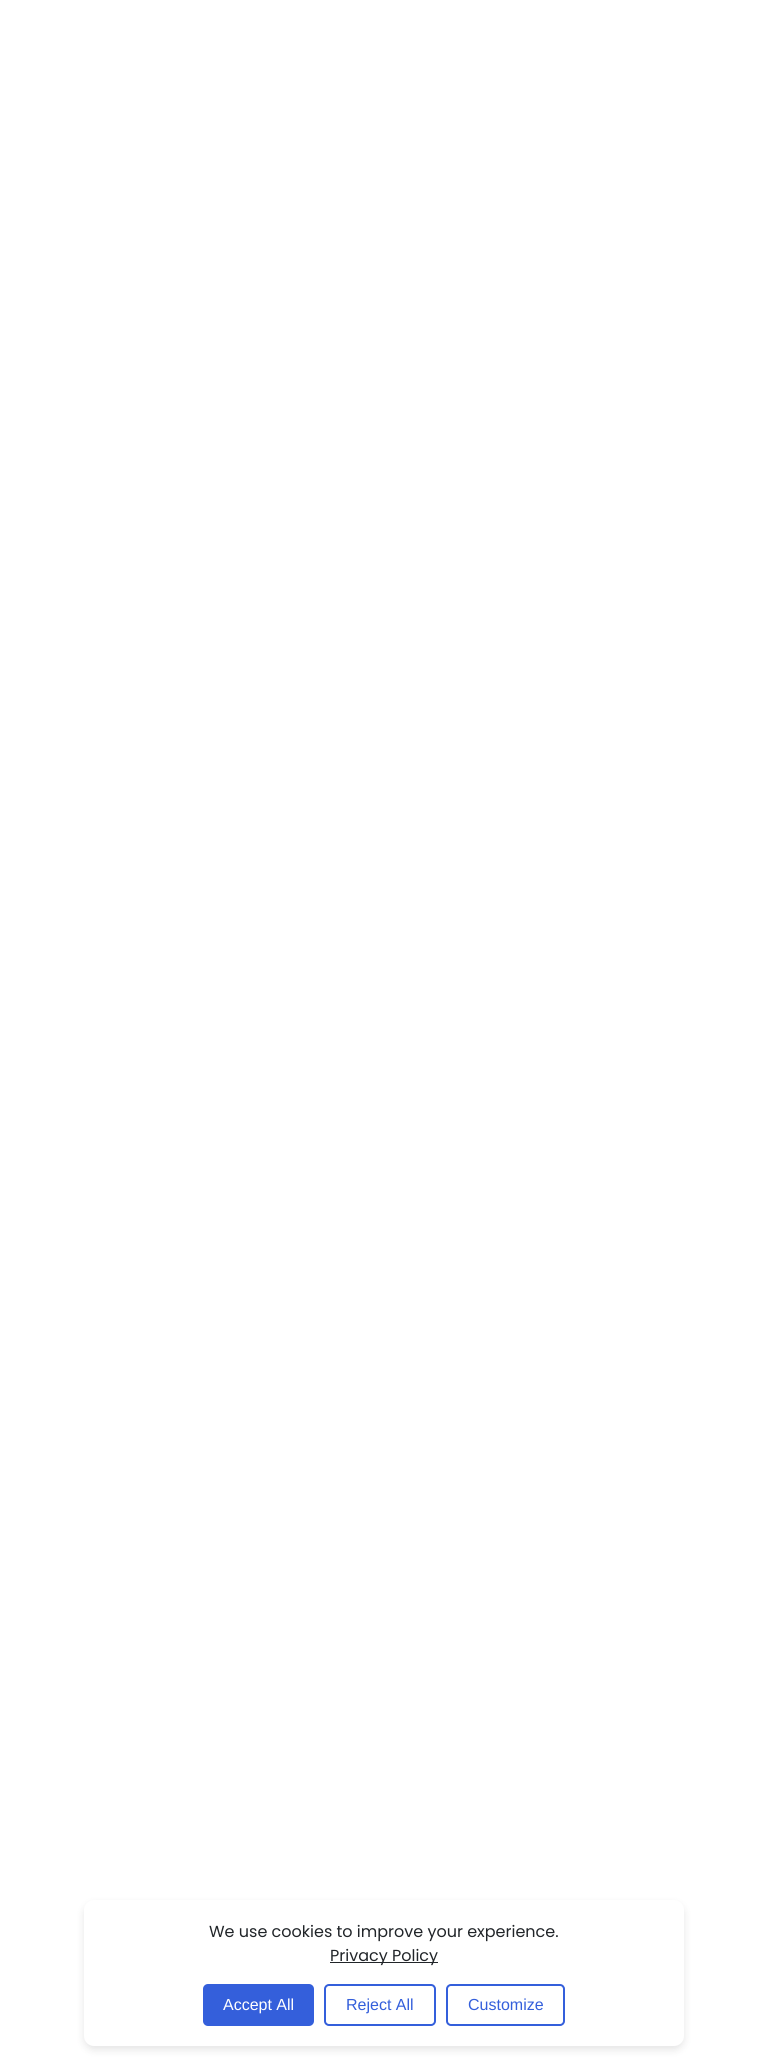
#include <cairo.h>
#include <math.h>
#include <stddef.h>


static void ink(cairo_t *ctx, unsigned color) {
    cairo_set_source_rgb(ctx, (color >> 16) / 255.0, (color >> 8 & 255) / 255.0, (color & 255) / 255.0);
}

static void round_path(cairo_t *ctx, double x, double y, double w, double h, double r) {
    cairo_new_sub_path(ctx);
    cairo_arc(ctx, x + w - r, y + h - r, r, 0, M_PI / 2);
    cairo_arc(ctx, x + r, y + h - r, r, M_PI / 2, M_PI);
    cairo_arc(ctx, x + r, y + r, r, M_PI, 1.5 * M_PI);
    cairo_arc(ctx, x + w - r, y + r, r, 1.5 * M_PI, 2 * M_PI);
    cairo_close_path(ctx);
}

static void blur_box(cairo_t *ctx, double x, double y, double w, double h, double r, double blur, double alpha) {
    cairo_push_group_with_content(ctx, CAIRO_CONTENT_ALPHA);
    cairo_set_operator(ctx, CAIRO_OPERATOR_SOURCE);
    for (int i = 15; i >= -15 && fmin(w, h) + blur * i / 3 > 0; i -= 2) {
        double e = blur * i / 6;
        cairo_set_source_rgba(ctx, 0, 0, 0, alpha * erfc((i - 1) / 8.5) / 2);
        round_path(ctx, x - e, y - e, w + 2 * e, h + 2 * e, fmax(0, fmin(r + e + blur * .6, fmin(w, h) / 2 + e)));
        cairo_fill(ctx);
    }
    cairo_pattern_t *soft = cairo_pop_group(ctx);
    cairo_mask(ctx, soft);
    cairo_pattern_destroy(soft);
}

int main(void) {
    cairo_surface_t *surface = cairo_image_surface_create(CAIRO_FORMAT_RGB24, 768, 2066);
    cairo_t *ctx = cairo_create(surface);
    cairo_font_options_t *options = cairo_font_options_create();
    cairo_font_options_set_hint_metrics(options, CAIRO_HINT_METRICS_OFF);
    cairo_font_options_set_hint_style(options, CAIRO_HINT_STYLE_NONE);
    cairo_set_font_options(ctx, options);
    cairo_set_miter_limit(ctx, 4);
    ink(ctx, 0xFFFFFF);
    cairo_paint(ctx);
    ink(ctx, 0x000000);
    blur_box(ctx, 84, 1904, 600, 146, 10, 4, 0.1);
    ink(ctx, 0xFFFFFF);
    round_path(ctx, 84, 1900, 600, 146, 10);
    cairo_fill(ctx);
    cairo_select_font_face(ctx, "Poppins", CAIRO_FONT_SLANT_NORMAL, CAIRO_FONT_WEIGHT_NORMAL);
    cairo_set_font_size(ctx, 16);
    ink(ctx, 0x212529);
    cairo_move_to(ctx, 209, 1937);
    cairo_show_text(ctx, "We use cookies to improve your experience.");
    cairo_rectangle(ctx, 330, 1962, 108, 1);
    cairo_fill(ctx);
    cairo_move_to(ctx, 330, 1961);
    cairo_show_text(ctx, "Privacy Policy");
    ink(ctx, 0x345FDB);
    round_path(ctx, 203, 1984, 111, 42, 5);
    cairo_fill(ctx);
    cairo_select_font_face(ctx, "Liberation Sans", CAIRO_FONT_SLANT_NORMAL, CAIRO_FONT_WEIGHT_NORMAL);
    ink(ctx, 0xFFFFFF);
    cairo_move_to(ctx, 223, 2010);
    cairo_show_text(ctx, "Accept All");
    round_path(ctx, 325, 1985, 110, 40, 4);
    ink(ctx, 0x345FDB);
    cairo_stroke(ctx);
    cairo_move_to(ctx, 346, 2010);
    cairo_show_text(ctx, "Reject All");
    round_path(ctx, 447, 1985, 117, 40, 4);
    cairo_stroke(ctx);
    cairo_move_to(ctx, 468, 2010);
    cairo_show_text(ctx, "Customize");
    cairo_surface_write_to_png(surface, "image.png");
    cairo_font_options_destroy(options);
    cairo_destroy(ctx);
    cairo_surface_destroy(surface);
    return 0;
}
